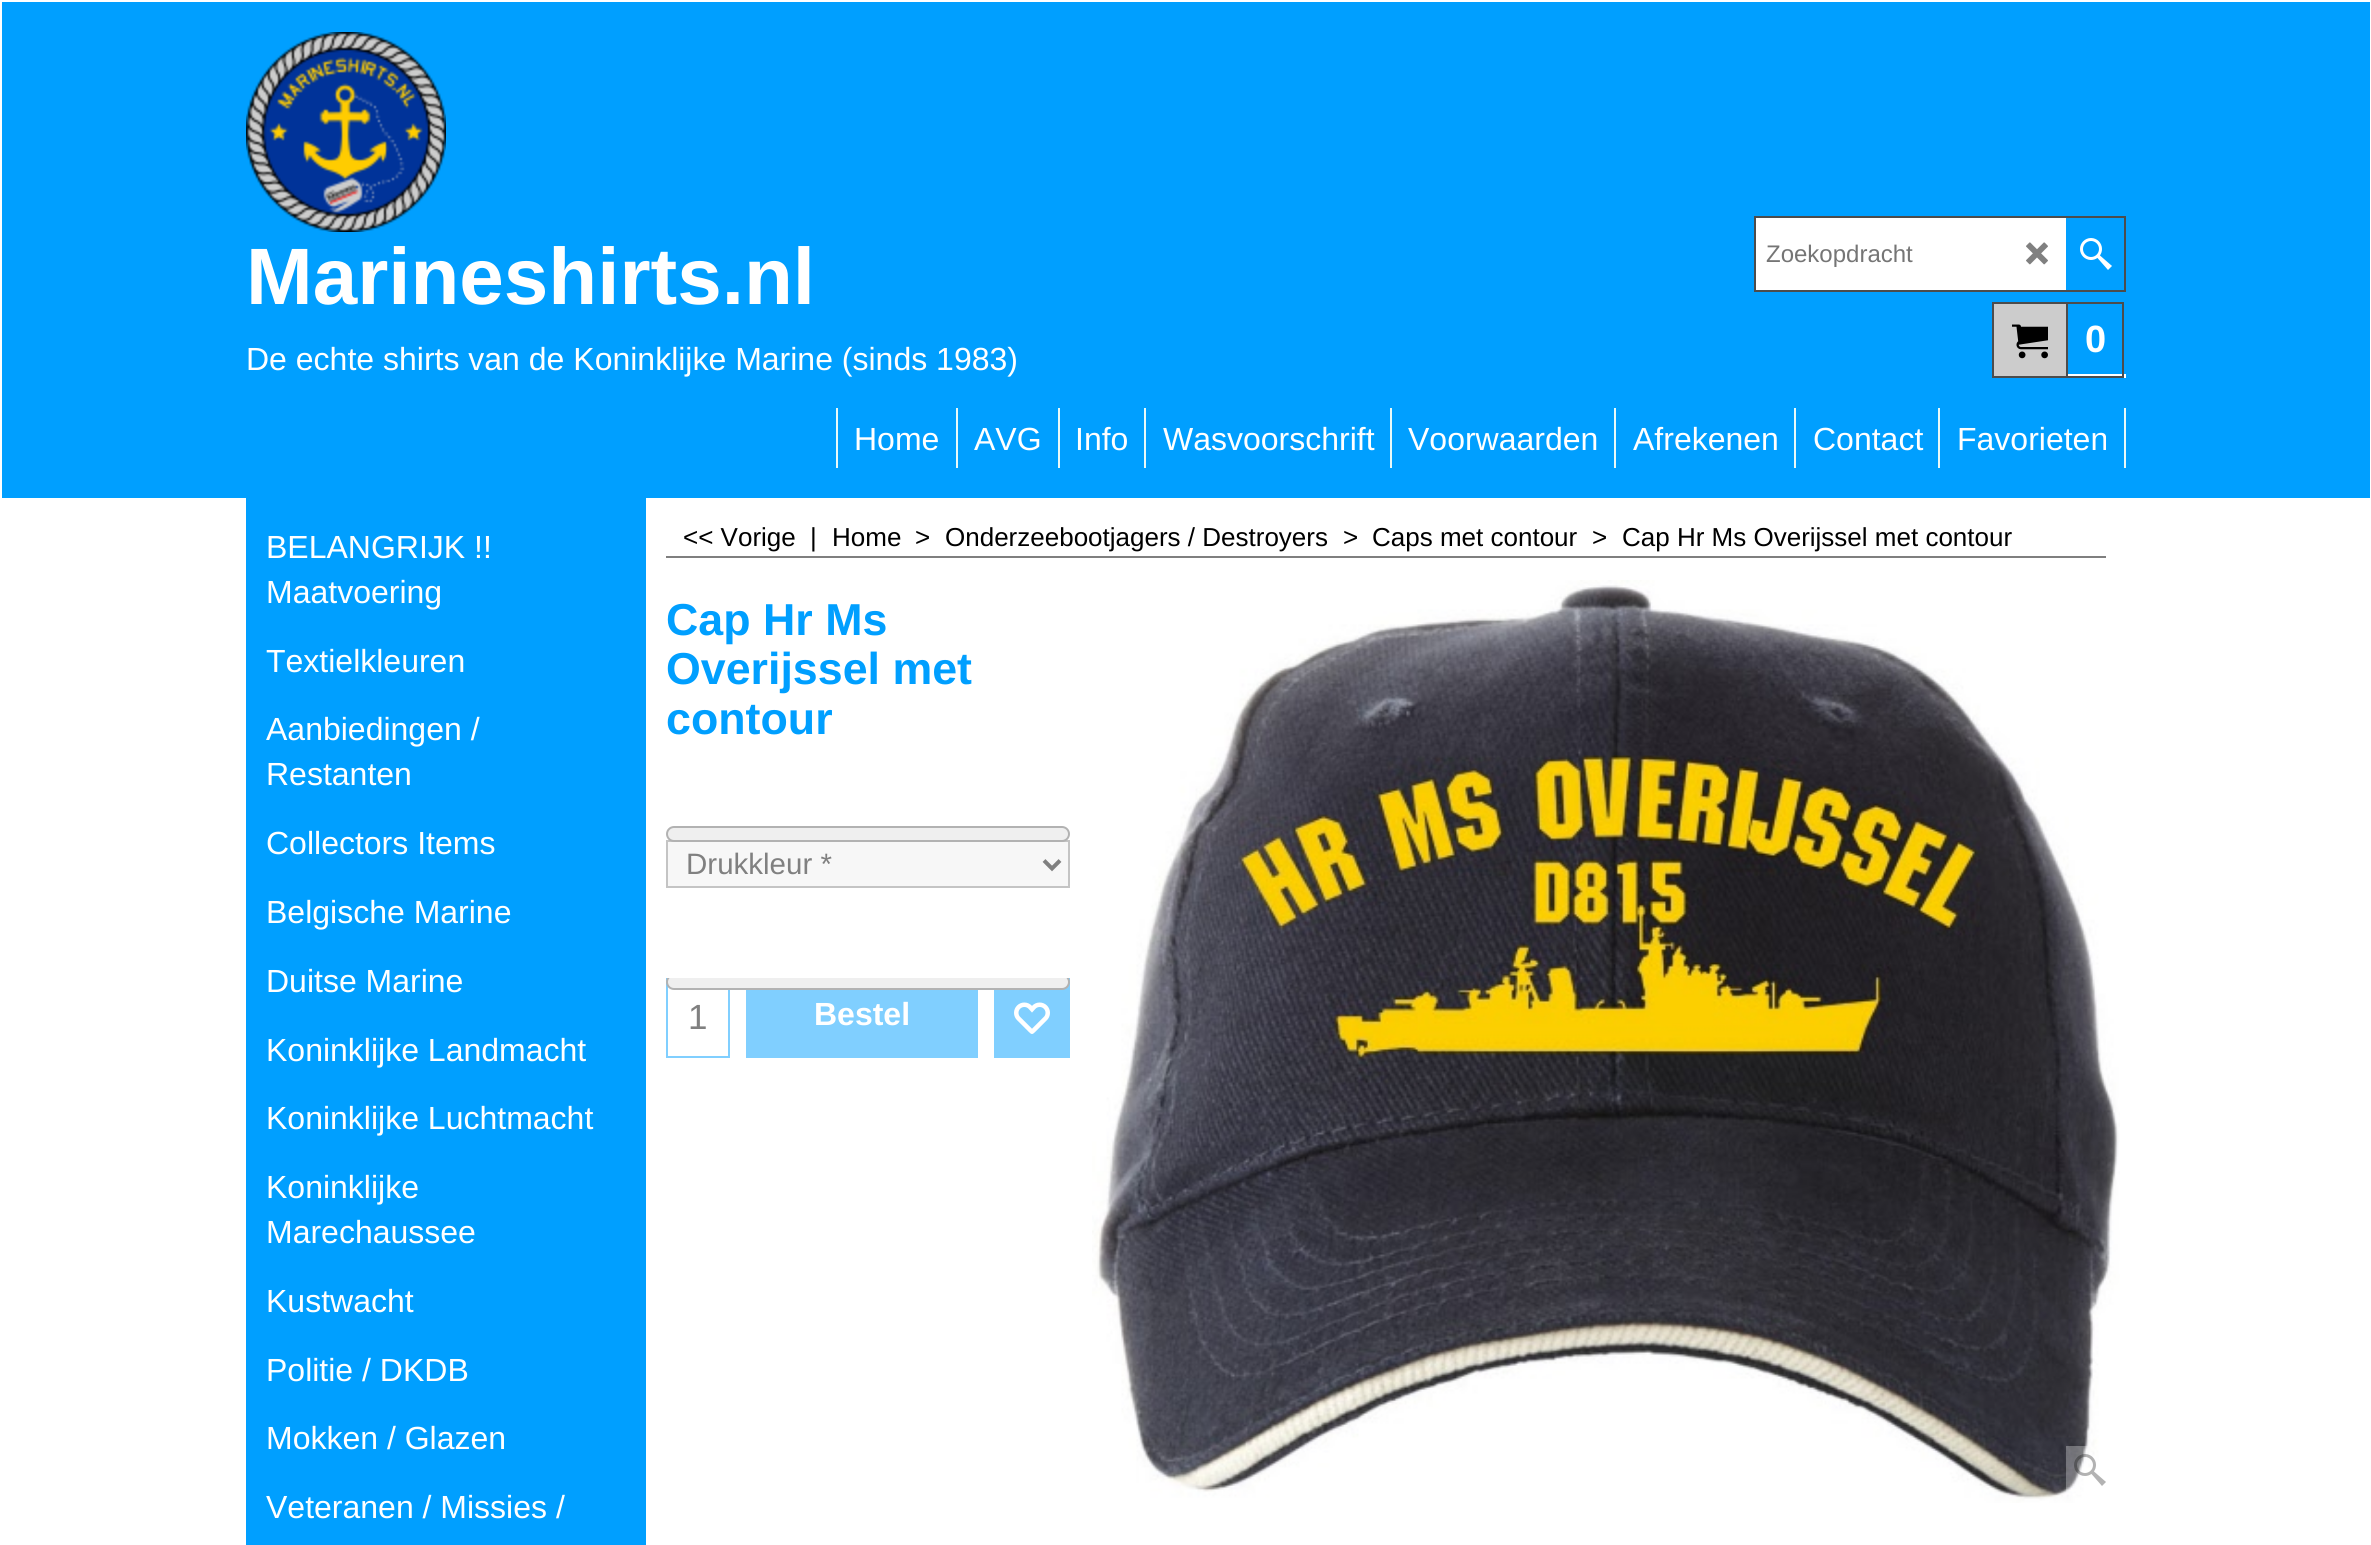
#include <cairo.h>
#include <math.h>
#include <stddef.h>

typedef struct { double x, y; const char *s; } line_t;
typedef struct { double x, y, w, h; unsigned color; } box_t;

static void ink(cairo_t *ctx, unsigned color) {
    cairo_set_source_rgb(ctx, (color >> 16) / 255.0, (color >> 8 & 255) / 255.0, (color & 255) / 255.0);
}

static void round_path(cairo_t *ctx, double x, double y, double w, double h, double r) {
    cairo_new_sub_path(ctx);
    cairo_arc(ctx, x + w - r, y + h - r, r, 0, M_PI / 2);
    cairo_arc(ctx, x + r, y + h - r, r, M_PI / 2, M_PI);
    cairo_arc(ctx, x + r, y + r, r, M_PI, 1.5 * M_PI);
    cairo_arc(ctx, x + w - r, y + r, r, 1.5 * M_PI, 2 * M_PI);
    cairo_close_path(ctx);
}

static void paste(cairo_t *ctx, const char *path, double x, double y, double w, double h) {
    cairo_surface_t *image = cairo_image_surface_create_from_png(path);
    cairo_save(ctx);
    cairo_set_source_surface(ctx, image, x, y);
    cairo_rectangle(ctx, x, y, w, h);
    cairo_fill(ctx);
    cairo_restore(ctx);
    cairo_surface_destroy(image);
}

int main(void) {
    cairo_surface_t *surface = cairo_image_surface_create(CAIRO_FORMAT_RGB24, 2371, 1545);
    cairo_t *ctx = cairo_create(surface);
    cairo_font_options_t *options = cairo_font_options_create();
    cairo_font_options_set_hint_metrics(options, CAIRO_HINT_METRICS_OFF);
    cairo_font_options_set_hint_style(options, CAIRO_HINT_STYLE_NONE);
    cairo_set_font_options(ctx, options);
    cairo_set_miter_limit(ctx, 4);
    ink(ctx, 0xFFFFFF);
    cairo_paint(ctx);
    ink(ctx, 0x009FFF);
    cairo_rectangle(ctx, 2, 2, 2368, 496);
    cairo_fill(ctx);
    paste(ctx, "media/1.png", 246, 32, 200, 200);
    cairo_select_font_face(ctx, "Liberation Sans", CAIRO_FONT_SLANT_NORMAL, CAIRO_FONT_WEIGHT_BOLD);
    cairo_set_font_size(ctx, 80);
    ink(ctx, 0xFFFFFF);
    cairo_move_to(ctx, 246, 304);
    cairo_show_text(ctx, "Marineshirts.nl");
    cairo_select_font_face(ctx, "Liberation Sans", CAIRO_FONT_SLANT_NORMAL, CAIRO_FONT_WEIGHT_NORMAL);
    cairo_set_font_size(ctx, 32);
    cairo_move_to(ctx, 246, 370);
    cairo_show_text(ctx, "De echte shirts van de Koninklijke Marine (sinds 1983)");
    cairo_rectangle(ctx, 1755, 217, 370, 74);
    ink(ctx, 0x4C4C4C);
    cairo_stroke(ctx);
    ink(ctx, 0xFFFFFF);
    cairo_rectangle(ctx, 1756, 218, 310, 72);
    cairo_fill(ctx);
    cairo_set_font_size(ctx, 24);
    ink(ctx, 0x757575);
    cairo_move_to(ctx, 1766, 262);
    cairo_show_text(ctx, "Zoekopdracht");
    paste(ctx, "media/2.png", 2026, 242, 22, 23);
    paste(ctx, "media/3.png", 2080, 238, 32, 32);
    ink(ctx, 0xFFFFFF);
    cairo_rectangle(ctx, 2068, 374, 58, 4);
    cairo_fill(ctx);
    ink(ctx, 0xCCCCCC);
    cairo_rectangle(ctx, 1993, 303, 74, 74);
    cairo_fill_preserve(ctx);
    ink(ctx, 0x4C4C4C);
    cairo_stroke(ctx);
    paste(ctx, "media/4.png", 2012, 324, 36, 35);
    cairo_rectangle(ctx, 2067, 303, 56, 74);
    cairo_stroke(ctx);
    cairo_select_font_face(ctx, "Liberation Sans", CAIRO_FONT_SLANT_NORMAL, CAIRO_FONT_WEIGHT_BOLD);
    cairo_set_font_size(ctx, 38);
    ink(ctx, 0xFFFFFF);
    cairo_move_to(ctx, 2085, 352);
    cairo_show_text(ctx, "0");
    ink(ctx, 0xE9F9F8);
    cairo_rectangle(ctx, 836, 408, 2, 60);
    cairo_fill(ctx);
    cairo_select_font_face(ctx, "Liberation Sans", CAIRO_FONT_SLANT_NORMAL, CAIRO_FONT_WEIGHT_NORMAL);
    cairo_set_font_size(ctx, 32);
    ink(ctx, 0xFFFFFF);
    cairo_move_to(ctx, 854, 450);
    cairo_show_text(ctx, "Home");
    ink(ctx, 0xE9F9F8);
    cairo_rectangle(ctx, 956, 408, 2, 60);
    cairo_fill(ctx);
    ink(ctx, 0xFFFFFF);
    cairo_move_to(ctx, 974, 450);
    cairo_show_text(ctx, "AVG");
    ink(ctx, 0xE9F9F8);
    cairo_rectangle(ctx, 1058, 408, 2, 60);
    cairo_fill(ctx);
    ink(ctx, 0xFFFFFF);
    cairo_move_to(ctx, 1075, 450);
    cairo_show_text(ctx, "Info");
    ink(ctx, 0xE9F9F8);
    cairo_rectangle(ctx, 1144, 408, 2, 60);
    cairo_fill(ctx);
    ink(ctx, 0xFFFFFF);
    cairo_move_to(ctx, 1163, 450);
    cairo_show_text(ctx, "Wasvoorschrift");
    ink(ctx, 0xE9F9F8);
    cairo_rectangle(ctx, 1390, 408, 2, 60);
    cairo_fill(ctx);
    ink(ctx, 0xFFFFFF);
    cairo_move_to(ctx, 1408, 450);
    cairo_show_text(ctx, "Voorwaarden");
    ink(ctx, 0xE9F9F8);
    cairo_rectangle(ctx, 1614, 408, 2, 60);
    cairo_fill(ctx);
    ink(ctx, 0xFFFFFF);
    cairo_move_to(ctx, 1633, 450);
    cairo_show_text(ctx, "Afrekenen");
    ink(ctx, 0xE9F9F8);
    cairo_rectangle(ctx, 1794, 408, 2, 60);
    cairo_fill(ctx);
    ink(ctx, 0xFFFFFF);
    cairo_move_to(ctx, 1813, 450);
    cairo_show_text(ctx, "Contact");
    ink(ctx, 0xE9F9F8);
    cairo_rectangle(ctx, 1938, 408, 2, 60);
    cairo_fill(ctx);
    ink(ctx, 0xFFFFFF);
    cairo_move_to(ctx, 1957, 450);
    cairo_show_text(ctx, "Favorieten");
    ink(ctx, 0xE9F9F8);
    cairo_rectangle(ctx, 2124, 408, 2, 60);
    cairo_fill(ctx);
    ink(ctx, 0x009FFF);
    cairo_rectangle(ctx, 246, 498, 400, 1047);
    cairo_fill(ctx);
    ink(ctx, 0xFFFFFF);
    {
        static const line_t items[] = {
            {266, 558, "BELANGRIJK !!"},
            {266, 603, "Maatvoering"},
            {266, 672, "Textielkleuren"},
            {266, 740, "Aanbiedingen /"},
            {266, 785, "Restanten"},
            {266, 854, "Collectors Items"},
            {266, 923, "Belgische Marine"},
            {266, 992, "Duitse Marine"},
            {266, 1061, "Koninklijke Landmacht"},
            {266, 1129, "Koninklijke Luchtmacht"},
            {266, 1198, "Koninklijke"},
            {266, 1243, "Marechaussee"},
            {266, 1312, "Kustwacht"},
            {266, 1381, "Politie / DKDB"},
            {266, 1449, "Mokken / Glazen"},
            {266, 1518, "Veteranen / Missies /"},
        };
        for (size_t i = 0; i < sizeof items / sizeof *items; i++) {
            cairo_move_to(ctx, items[i].x, items[i].y);
            cairo_show_text(ctx, items[i].s);
        }
    }
    ink(ctx, 0x7F7F7F);
    cairo_rectangle(ctx, 666, 556, 1440, 2);
    cairo_fill(ctx);
    cairo_set_font_size(ctx, 26);
    ink(ctx, 0x000000);
    {
        static const line_t items[] = {
            {683, 546, "<< Vorige"},
            {810, 546, "|"},
            {832, 546, "Home"},
            {915, 546, ">"},
            {945, 546, "Onderzeebootjagers / Destroyers"},
            {1343, 546, ">"},
            {1372, 546, "Caps met contour"},
            {1592, 546, ">"},
            {1622, 546, "Cap Hr Ms Overijssel met contour"},
        };
        for (size_t i = 0; i < sizeof items / sizeof *items; i++) {
            cairo_move_to(ctx, items[i].x, items[i].y);
            cairo_show_text(ctx, items[i].s);
        }
    }
    cairo_select_font_face(ctx, "Liberation Sans", CAIRO_FONT_SLANT_NORMAL, CAIRO_FONT_WEIGHT_BOLD);
    cairo_set_font_size(ctx, 44.75);
    ink(ctx, 0x009FFF);
    {
        static const line_t items[] = {
            {666, 635, "Cap Hr Ms"},
            {666, 684, "Overijssel met"},
            {666, 734, "contour"},
        };
        for (size_t i = 0; i < sizeof items / sizeof *items; i++) {
            cairo_move_to(ctx, items[i].x, items[i].y);
            cairo_show_text(ctx, items[i].s);
        }
    }
    ink(ctx, 0xF7F7F7);
    cairo_rectangle(ctx, 667, 841, 402, 46);
    cairo_fill_preserve(ctx);
    ink(ctx, 0xC4C4C4);
    cairo_stroke(ctx);
    ink(ctx, 0xEFEFEF);
    round_path(ctx, 667, 827, 402, 14, 7);
    cairo_fill_preserve(ctx);
    ink(ctx, 0xB2B2B2);
    cairo_stroke(ctx);
    cairo_new_path(ctx);
    cairo_move_to(ctx, 1044, 860.5);
    cairo_line_to(ctx, 1052, 868.5);
    cairo_line_to(ctx, 1060, 860.5);
    ink(ctx, 0x808080);
    cairo_set_line_width(ctx, 4);
    cairo_stroke(ctx);
    cairo_select_font_face(ctx, "Liberation Sans", CAIRO_FONT_SLANT_NORMAL, CAIRO_FONT_WEIGHT_NORMAL);
    cairo_set_font_size(ctx, 29.5);
    cairo_move_to(ctx, 686, 874);
    cairo_show_text(ctx, "Drukkleur *");
    {
        static const box_t items[] = {
            {666, 978, 64, 80, 0x80CFFF},
            {668, 987, 60, 69, 0xFFFFFF},
            {994, 978, 76, 80, 0x80CFFF},
        };
        for (size_t i = 0; i < sizeof items / sizeof *items; i++) {
            ink(ctx, items[i].color);
            cairo_rectangle(ctx, items[i].x, items[i].y, items[i].w, items[i].h);
            cairo_fill(ctx);
        }
    }
    cairo_save(ctx);
    cairo_rectangle(ctx, 666, 978, 404, 80);
    cairo_clip(ctx);
    ink(ctx, 0xEFEFEF);
    round_path(ctx, 667, 975, 402, 14, 7);
    cairo_fill_preserve(ctx);
    ink(ctx, 0xB2B2B2);
    cairo_set_line_width(ctx, 2);
    cairo_stroke(ctx);
    cairo_restore(ctx);
    cairo_set_font_size(ctx, 35);
    ink(ctx, 0x808080);
    cairo_move_to(ctx, 688, 1029);
    cairo_show_text(ctx, "1");
    ink(ctx, 0x80CFFF);
    cairo_rectangle(ctx, 746, 990, 232, 68);
    cairo_fill(ctx);
    cairo_select_font_face(ctx, "Liberation Sans", CAIRO_FONT_SLANT_NORMAL, CAIRO_FONT_WEIGHT_BOLD);
    cairo_set_font_size(ctx, 32);
    ink(ctx, 0xFFFFFF);
    cairo_move_to(ctx, 814, 1025);
    cairo_show_text(ctx, "Bestel");
    paste(ctx, "media/5.png", 1014, 1002, 36, 32);
    paste(ctx, "media/6.png", 1092, 580, 1028, 923);
    cairo_set_source_rgba(ctx, 1, 1, 1, 0.3);
    cairo_rectangle(ctx, 2066, 1446, 22, 46);
    cairo_fill(ctx);
    paste(ctx, "media/7.png", 2074, 1454, 32, 32);
    cairo_surface_write_to_png(surface, "image.png");
    cairo_font_options_destroy(options);
    cairo_destroy(ctx);
    cairo_surface_destroy(surface);
    return 0;
}
